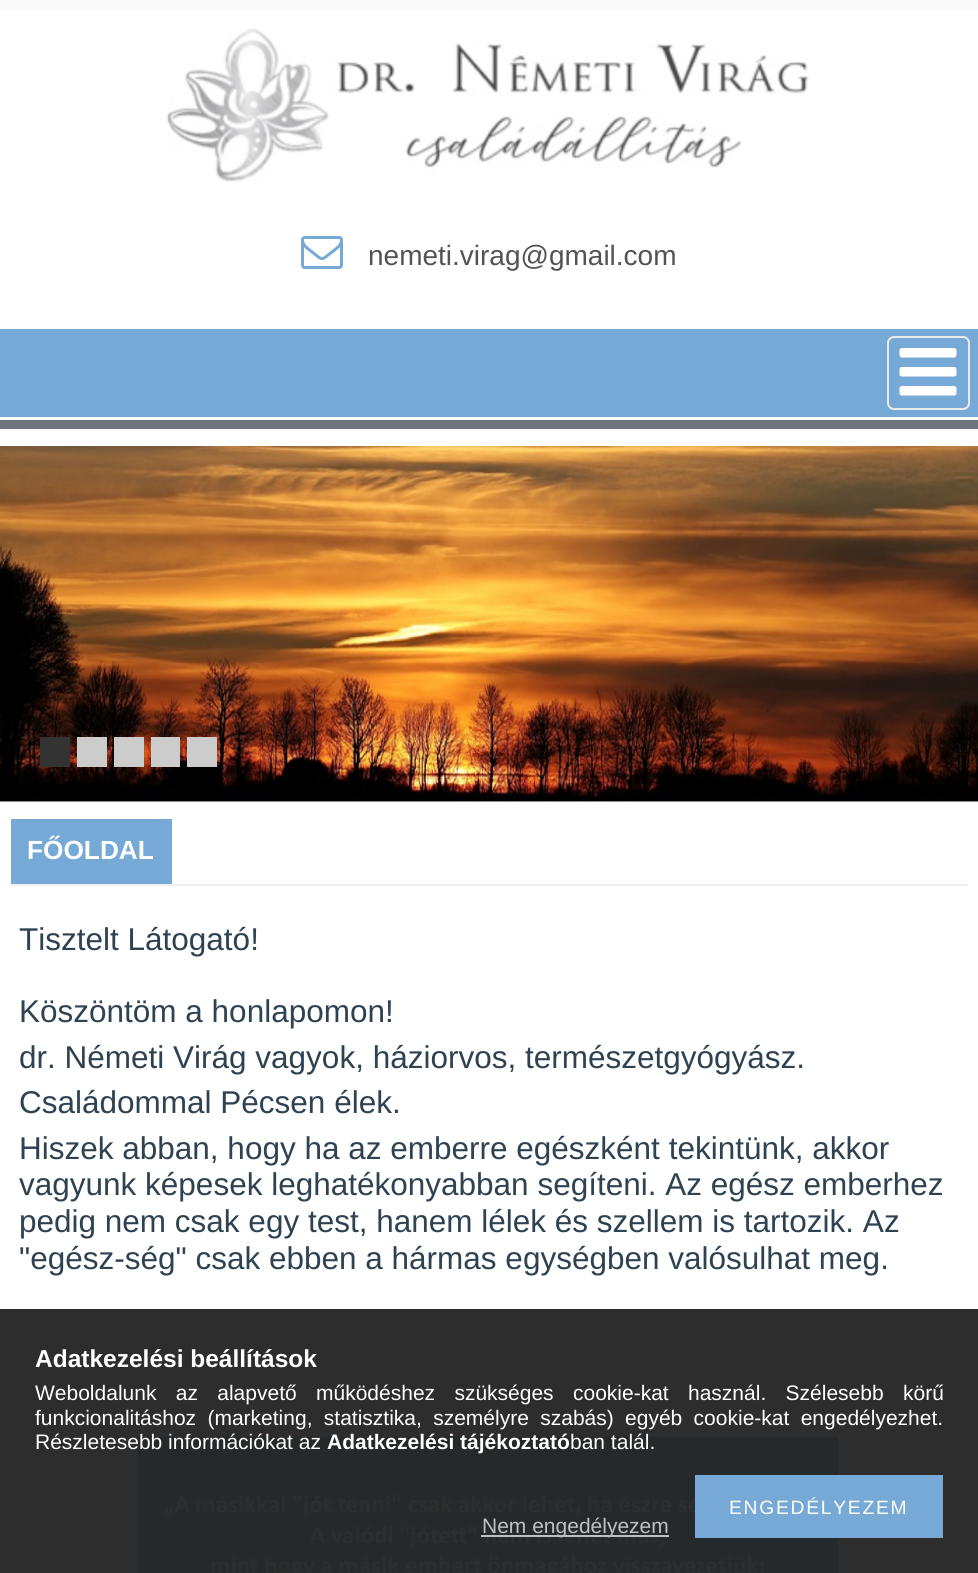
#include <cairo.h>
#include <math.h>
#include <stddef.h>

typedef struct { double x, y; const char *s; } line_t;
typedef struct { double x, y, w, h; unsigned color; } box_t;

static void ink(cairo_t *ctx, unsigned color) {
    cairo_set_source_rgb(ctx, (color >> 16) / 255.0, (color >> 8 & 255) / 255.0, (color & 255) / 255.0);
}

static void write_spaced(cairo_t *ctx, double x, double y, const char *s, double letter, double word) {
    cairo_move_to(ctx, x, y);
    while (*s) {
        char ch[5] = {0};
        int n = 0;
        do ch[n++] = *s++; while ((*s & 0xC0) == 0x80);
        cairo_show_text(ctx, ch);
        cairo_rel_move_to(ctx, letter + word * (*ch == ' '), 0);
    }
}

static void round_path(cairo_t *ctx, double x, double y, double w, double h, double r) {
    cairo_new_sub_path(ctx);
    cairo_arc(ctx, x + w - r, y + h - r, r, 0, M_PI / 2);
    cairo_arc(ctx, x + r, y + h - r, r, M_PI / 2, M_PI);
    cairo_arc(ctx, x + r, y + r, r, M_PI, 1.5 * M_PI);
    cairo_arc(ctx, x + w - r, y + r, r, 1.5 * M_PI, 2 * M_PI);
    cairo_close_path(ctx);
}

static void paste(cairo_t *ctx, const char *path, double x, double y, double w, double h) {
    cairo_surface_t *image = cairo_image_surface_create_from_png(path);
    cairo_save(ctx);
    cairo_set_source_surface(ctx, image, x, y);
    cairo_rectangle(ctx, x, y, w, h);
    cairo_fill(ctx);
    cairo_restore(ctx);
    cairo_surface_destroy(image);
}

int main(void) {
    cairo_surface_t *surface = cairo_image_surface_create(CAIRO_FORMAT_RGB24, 978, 1573);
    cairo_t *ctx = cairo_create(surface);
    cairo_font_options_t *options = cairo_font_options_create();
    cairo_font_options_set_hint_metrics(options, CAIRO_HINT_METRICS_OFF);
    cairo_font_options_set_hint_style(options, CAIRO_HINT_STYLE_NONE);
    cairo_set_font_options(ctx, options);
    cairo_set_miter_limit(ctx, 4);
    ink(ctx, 0xFFFFFF);
    cairo_paint(ctx);
    ink(ctx, 0x2D2D2D);
    cairo_rectangle(ctx, 0, 1309, 978, 264);
    cairo_fill(ctx);
    ink(ctx, 0xF9F9F9);
    cairo_rectangle(ctx, 0, 0, 978, 9);
    cairo_fill(ctx);
    paste(ctx, "media/1.png", 166, 28, 643, 154);
    paste(ctx, "media/2.png", 301, 236, 42, 33);
    cairo_select_font_face(ctx, "Liberation Sans", CAIRO_FONT_SLANT_NORMAL, CAIRO_FONT_WEIGHT_NORMAL);
    cairo_set_font_size(ctx, 28);
    ink(ctx, 0x535353);
    cairo_move_to(ctx, 368, 265);
    cairo_show_text(ctx, "nemeti.virag@gmail.com");
    ink(ctx, 0x76A9D6);
    cairo_rectangle(ctx, 0, 329, 978, 88);
    cairo_fill(ctx);
    round_path(ctx, 888, 337, 81, 72, 6);
    ink(ctx, 0xEAEAEA);
    cairo_stroke(ctx);
    paste(ctx, "media/3.png", 899, 348, 58, 48);
    ink(ctx, 0x6E747B);
    cairo_rectangle(ctx, 0, 420, 978, 9);
    cairo_fill(ctx);
    paste(ctx, "media/4.png", 0, 446, 978, 356);
    {
        static const box_t items[] = {
            {40, 737, 30, 30, 0x333333},
            {77, 737, 30, 30, 0xCCCCCC},
            {114, 737, 30, 30, 0xCCCCCC},
            {151, 737, 29, 30, 0xCCCCCC},
            {187, 737, 30, 30, 0xCCCCCC},
            {11, 884, 957, 2, 0xEFEFEF},
            {11, 819, 161, 65, 0x76A9D6},
        };
        for (size_t i = 0; i < sizeof items / sizeof *items; i++) {
            ink(ctx, items[i].color);
            cairo_rectangle(ctx, items[i].x, items[i].y, items[i].w, items[i].h);
            cairo_fill(ctx);
        }
    }
    cairo_select_font_face(ctx, "Liberation Sans", CAIRO_FONT_SLANT_NORMAL, CAIRO_FONT_WEIGHT_BOLD);
    cairo_set_font_size(ctx, 26.25);
    ink(ctx, 0xFFFFFF);
    cairo_move_to(ctx, 27, 859);
    cairo_show_text(ctx, "FŐOLDAL");
    cairo_select_font_face(ctx, "Liberation Sans", CAIRO_FONT_SLANT_NORMAL, CAIRO_FONT_WEIGHT_NORMAL);
    cairo_set_font_size(ctx, 31.5);
    ink(ctx, 0x2E4252);
    {
        static const line_t items[] = {
            {19, 950, "Tisztelt Látogató!"},
            {19, 1022, "Köszöntöm a honlapomon!"},
            {19, 1068, "dr. Németi Virág vagyok, háziorvos, természetgyógyász."},
            {19, 1113, "Családommal Pécsen élek."},
            {19, 1159, "Hiszek abban, hogy ha az emberre egészként tekintünk, akkor"},
            {19, 1195, "vagyunk képesek leghatékonyabban segíteni. Az egész emberhez"},
            {19, 1232, "pedig nem csak egy test, hanem lélek és szellem is tartozik. Az"},
            {19, 1269, "\"egész-ség\" csak ebben a hármas egységben valósulhat meg."},
        };
        for (size_t i = 0; i < sizeof items / sizeof *items; i++) {
            cairo_move_to(ctx, items[i].x, items[i].y);
            cairo_show_text(ctx, items[i].s);
        }
    }
    paste(ctx, "media/5.png", 138, 1436, 701, 137);
    cairo_select_font_face(ctx, "Liberation Sans", CAIRO_FONT_SLANT_NORMAL, CAIRO_FONT_WEIGHT_BOLD);
    cairo_set_font_size(ctx, 24.5);
    ink(ctx, 0xFFFFFF);
    cairo_move_to(ctx, 35, 1367);
    cairo_show_text(ctx, "Adatkezelési beállítások");
    cairo_select_font_face(ctx, "Liberation Sans", CAIRO_FONT_SLANT_NORMAL, CAIRO_FONT_WEIGHT_NORMAL);
    cairo_set_font_size(ctx, 21);
    write_spaced(ctx, 35, 1400, "Weboldalunk az alapvető működéshez szükséges cookie-kat használ. Szélesebb körű", 0, 13.5);
    write_spaced(ctx, 35, 1425, "funkcionalitáshoz (marketing, statisztika, személyre szabás) egyéb cookie-kat engedélyezhet.", 0, 5.5);
    cairo_move_to(ctx, 35, 1449);
    cairo_show_text(ctx, "Részletesebb információkat az");
    cairo_select_font_face(ctx, "Liberation Sans", CAIRO_FONT_SLANT_NORMAL, CAIRO_FONT_WEIGHT_BOLD);
    cairo_move_to(ctx, 327, 1449);
    cairo_show_text(ctx, "Adatkezelési tájékoztató");
    cairo_select_font_face(ctx, "Liberation Sans", CAIRO_FONT_SLANT_NORMAL, CAIRO_FONT_WEIGHT_NORMAL);
    cairo_move_to(ctx, 570, 1449);
    cairo_show_text(ctx, "ban talál.");
    ink(ctx, 0x76A9D6);
    cairo_rectangle(ctx, 695, 1475, 248, 63);
    cairo_fill(ctx);
    cairo_set_font_size(ctx, 19.25);
    ink(ctx, 0xFFFFFF);
    write_spaced(ctx, 729, 1514, "ENGEDÉLYEZEM", 1.75, 0);
    cairo_set_source_rgba(ctx, 1, 1, 1, 0.7);
    cairo_rectangle(ctx, 481, 1535, 188, 2);
    cairo_fill(ctx);
    cairo_set_font_size(ctx, 21);
    ink(ctx, 0xBFC0C0);
    cairo_move_to(ctx, 482, 1533);
    cairo_show_text(ctx, "Nem engedélyezem");
    cairo_surface_write_to_png(surface, "image.png");
    cairo_font_options_destroy(options);
    cairo_destroy(ctx);
    cairo_surface_destroy(surface);
    return 0;
}
